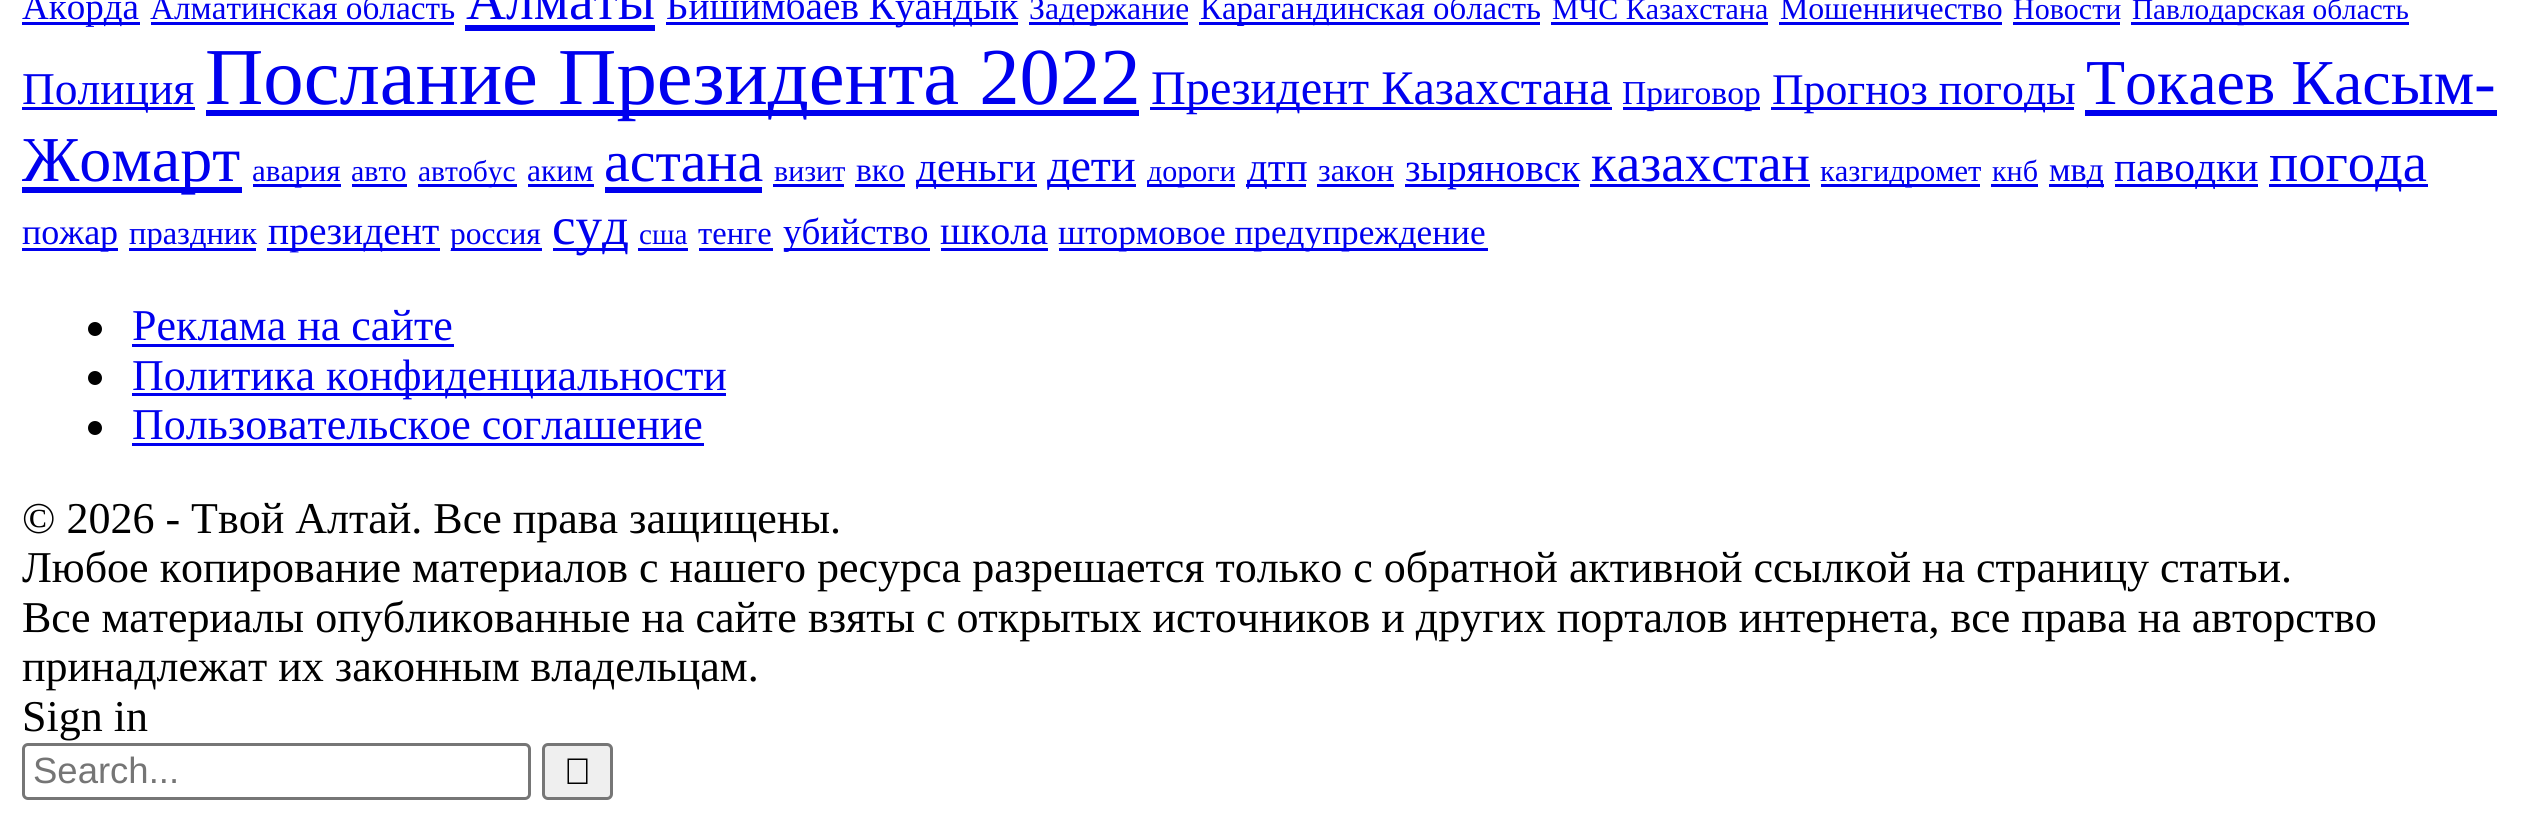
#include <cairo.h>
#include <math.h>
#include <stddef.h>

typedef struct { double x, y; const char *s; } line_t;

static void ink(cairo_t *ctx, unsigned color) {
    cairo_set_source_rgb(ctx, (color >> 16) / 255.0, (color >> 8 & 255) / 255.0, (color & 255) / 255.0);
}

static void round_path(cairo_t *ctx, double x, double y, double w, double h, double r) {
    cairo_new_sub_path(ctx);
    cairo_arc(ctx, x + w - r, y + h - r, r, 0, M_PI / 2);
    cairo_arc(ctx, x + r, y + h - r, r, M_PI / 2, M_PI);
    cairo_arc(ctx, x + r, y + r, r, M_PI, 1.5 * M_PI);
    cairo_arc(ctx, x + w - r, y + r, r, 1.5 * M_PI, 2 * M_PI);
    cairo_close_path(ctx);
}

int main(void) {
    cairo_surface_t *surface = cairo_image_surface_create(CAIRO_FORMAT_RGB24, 2546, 822);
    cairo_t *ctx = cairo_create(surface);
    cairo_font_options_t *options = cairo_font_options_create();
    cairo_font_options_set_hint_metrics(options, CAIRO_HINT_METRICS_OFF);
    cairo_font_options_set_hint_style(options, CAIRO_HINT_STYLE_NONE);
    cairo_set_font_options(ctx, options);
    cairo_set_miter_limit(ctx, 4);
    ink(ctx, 0xFFFFFF);
    cairo_paint(ctx);
    ink(ctx, 0x0000EE);
    cairo_rectangle(ctx, 22, 22, 118, 3);
    cairo_fill(ctx);
    cairo_select_font_face(ctx, "Liberation Serif", CAIRO_FONT_SLANT_NORMAL, CAIRO_FONT_WEIGHT_NORMAL);
    cairo_set_font_size(ctx, 37);
    cairo_move_to(ctx, 22, 19);
    cairo_show_text(ctx, "Акорда");
    cairo_set_font_size(ctx, 33.25);
    cairo_move_to(ctx, 150, 19);
    cairo_show_text(ctx, "Алматинская область");
    cairo_rectangle(ctx, 151, 22, 303, 3);
    cairo_fill(ctx);
    cairo_set_font_size(ctx, 55.5);
    cairo_move_to(ctx, 466, 19);
    cairo_show_text(ctx, "Алматы");
    cairo_rectangle(ctx, 465, 25, 190, 6);
    cairo_fill(ctx);
    cairo_rectangle(ctx, 666, 22, 352, 3);
    cairo_fill(ctx);
    cairo_set_font_size(ctx, 39.25);
    cairo_move_to(ctx, 666, 19);
    cairo_show_text(ctx, "Бишимбаев Куандык");
    cairo_rectangle(ctx, 1029, 22, 159, 3);
    cairo_fill(ctx);
    cairo_set_font_size(ctx, 31.75);
    cairo_move_to(ctx, 1029, 19);
    cairo_show_text(ctx, "Задержание");
    cairo_rectangle(ctx, 1199, 22, 341, 3);
    cairo_fill(ctx);
    cairo_set_font_size(ctx, 32.8);
    cairo_move_to(ctx, 1200, 19);
    cairo_show_text(ctx, "Карагандинская область");
    cairo_set_font_size(ctx, 30);
    cairo_move_to(ctx, 1552, 19);
    cairo_show_text(ctx, "МЧС Казахстана");
    cairo_rectangle(ctx, 1551, 22, 217, 3);
    cairo_fill(ctx);
    cairo_set_font_size(ctx, 31.75);
    cairo_move_to(ctx, 1780, 19);
    cairo_show_text(ctx, "Мошенничество");
    cairo_rectangle(ctx, 1779, 22, 223, 3);
    cairo_fill(ctx);
    cairo_set_font_size(ctx, 30);
    cairo_move_to(ctx, 2013, 19);
    cairo_show_text(ctx, "Новости");
    cairo_rectangle(ctx, 2013, 22, 107, 3);
    cairo_fill(ctx);
    cairo_rectangle(ctx, 2131, 22, 278, 3);
    cairo_fill(ctx);
    cairo_set_font_size(ctx, 29.25);
    cairo_move_to(ctx, 2132, 19);
    cairo_show_text(ctx, "Павлодарская область");
    cairo_rectangle(ctx, 22, 107, 173, 3);
    cairo_fill(ctx);
    cairo_set_font_size(ctx, 45.5);
    cairo_move_to(ctx, 22, 104);
    cairo_show_text(ctx, "Полиция");
    cairo_rectangle(ctx, 206, 110, 933, 6);
    cairo_fill(ctx);
    cairo_set_font_size(ctx, 80.75);
    cairo_move_to(ctx, 205, 104);
    cairo_show_text(ctx, "Послание Президента 2022");
    cairo_rectangle(ctx, 1150, 107, 462, 3);
    cairo_fill(ctx);
    cairo_set_font_size(ctx, 48.25);
    cairo_move_to(ctx, 1151, 104);
    cairo_show_text(ctx, "Президент Казахстана");
    cairo_rectangle(ctx, 1623, 107, 137, 3);
    cairo_fill(ctx);
    cairo_set_font_size(ctx, 33.5);
    cairo_move_to(ctx, 1622, 104);
    cairo_show_text(ctx, "Приговор");
    cairo_rectangle(ctx, 1771, 107, 303, 3);
    cairo_fill(ctx);
    cairo_set_font_size(ctx, 43.75);
    cairo_move_to(ctx, 1772, 104);
    cairo_show_text(ctx, "Прогноз погоды");
    cairo_set_font_size(ctx, 64);
    cairo_move_to(ctx, 2086, 104);
    cairo_show_text(ctx, "Токаев Касым-");
    cairo_rectangle(ctx, 2085, 110, 412, 6);
    cairo_fill(ctx);
    cairo_rectangle(ctx, 22, 187, 220, 6);
    cairo_fill(ctx);
    cairo_move_to(ctx, 22, 181);
    cairo_show_text(ctx, "Жомарт");
    cairo_rectangle(ctx, 253, 184, 88, 3);
    cairo_fill(ctx);
    cairo_set_font_size(ctx, 31);
    cairo_move_to(ctx, 252, 181);
    cairo_show_text(ctx, "авария");
    cairo_set_font_size(ctx, 30);
    cairo_move_to(ctx, 351, 181);
    cairo_show_text(ctx, "авто");
    cairo_rectangle(ctx, 352, 184, 55, 3);
    cairo_fill(ctx);
    cairo_rectangle(ctx, 418, 184, 99, 3);
    cairo_fill(ctx);
    cairo_set_font_size(ctx, 29.5);
    cairo_move_to(ctx, 418, 181);
    cairo_show_text(ctx, "автобус");
    cairo_set_font_size(ctx, 31.5);
    cairo_move_to(ctx, 527, 181);
    cairo_show_text(ctx, "аким");
    cairo_rectangle(ctx, 528, 184, 66, 3);
    cairo_fill(ctx);
    cairo_set_font_size(ctx, 58);
    cairo_move_to(ctx, 604, 181);
    cairo_show_text(ctx, "астана");
    cairo_rectangle(ctx, 605, 187, 157, 6);
    cairo_fill(ctx);
    cairo_set_font_size(ctx, 30);
    cairo_move_to(ctx, 774, 181);
    cairo_show_text(ctx, "визит");
    cairo_rectangle(ctx, 773, 184, 71, 3);
    cairo_fill(ctx);
    cairo_set_font_size(ctx, 33.5);
    cairo_move_to(ctx, 856, 181);
    cairo_show_text(ctx, "вко");
    cairo_rectangle(ctx, 855, 184, 50, 3);
    cairo_fill(ctx);
    cairo_rectangle(ctx, 916, 184, 121, 3);
    cairo_fill(ctx);
    cairo_set_font_size(ctx, 41.5);
    cairo_move_to(ctx, 916, 181);
    cairo_show_text(ctx, "деньги");
    cairo_rectangle(ctx, 1048, 184, 88, 3);
    cairo_fill(ctx);
    cairo_set_font_size(ctx, 46);
    cairo_move_to(ctx, 1047, 181);
    cairo_show_text(ctx, "дети");
    cairo_rectangle(ctx, 1147, 184, 88, 3);
    cairo_fill(ctx);
    cairo_set_font_size(ctx, 30);
    cairo_move_to(ctx, 1147, 181);
    cairo_show_text(ctx, "дороги");
    cairo_rectangle(ctx, 1246, 184, 60, 3);
    cairo_fill(ctx);
    cairo_set_font_size(ctx, 41);
    cairo_move_to(ctx, 1247, 181);
    cairo_show_text(ctx, "дтп");
    cairo_set_font_size(ctx, 32);
    cairo_move_to(ctx, 1318, 181);
    cairo_show_text(ctx, "закон");
    cairo_rectangle(ctx, 1317, 184, 77, 3);
    cairo_fill(ctx);
    cairo_rectangle(ctx, 1405, 184, 174, 3);
    cairo_fill(ctx);
    cairo_set_font_size(ctx, 39.25);
    cairo_move_to(ctx, 1405, 181);
    cairo_show_text(ctx, "зыряновск");
    cairo_set_font_size(ctx, 53);
    cairo_move_to(ctx, 1591, 181);
    cairo_show_text(ctx, "казахстан");
    cairo_rectangle(ctx, 1590, 184, 220, 3);
    cairo_fill(ctx);
    cairo_rectangle(ctx, 1821, 184, 159, 3);
    cairo_fill(ctx);
    cairo_set_font_size(ctx, 30.5);
    cairo_move_to(ctx, 1820, 181);
    cairo_show_text(ctx, "казгидромет");
    cairo_set_font_size(ctx, 30);
    cairo_move_to(ctx, 1992, 181);
    cairo_show_text(ctx, "кнб");
    cairo_rectangle(ctx, 1991, 184, 47, 3);
    cairo_fill(ctx);
    cairo_rectangle(ctx, 2049, 184, 55, 3);
    cairo_fill(ctx);
    cairo_set_font_size(ctx, 34);
    cairo_move_to(ctx, 2049, 181);
    cairo_show_text(ctx, "мвд");
    cairo_rectangle(ctx, 2115, 184, 143, 3);
    cairo_fill(ctx);
    cairo_set_font_size(ctx, 41.5);
    cairo_move_to(ctx, 2114, 181);
    cairo_show_text(ctx, "паводки");
    cairo_rectangle(ctx, 2269, 184, 159, 3);
    cairo_fill(ctx);
    cairo_set_font_size(ctx, 54.5);
    cairo_move_to(ctx, 2269, 181);
    cairo_show_text(ctx, "погода");
    cairo_rectangle(ctx, 22, 248, 96, 3);
    cairo_fill(ctx);
    cairo_set_font_size(ctx, 36);
    cairo_move_to(ctx, 22, 244);
    cairo_show_text(ctx, "пожар");
    cairo_rectangle(ctx, 129, 248, 127, 3);
    cairo_fill(ctx);
    cairo_set_font_size(ctx, 32.5);
    cairo_move_to(ctx, 129, 244);
    cairo_show_text(ctx, "праздник");
    cairo_rectangle(ctx, 267, 248, 173, 3);
    cairo_fill(ctx);
    cairo_set_font_size(ctx, 39.5);
    cairo_move_to(ctx, 268, 244);
    cairo_show_text(ctx, "президент");
    cairo_rectangle(ctx, 451, 248, 91, 3);
    cairo_fill(ctx);
    cairo_set_font_size(ctx, 31.5);
    cairo_move_to(ctx, 450, 244);
    cairo_show_text(ctx, "россия");
    cairo_rectangle(ctx, 553, 248, 74, 3);
    cairo_fill(ctx);
    cairo_set_font_size(ctx, 53);
    cairo_move_to(ctx, 552, 244);
    cairo_show_text(ctx, "суд");
    cairo_set_font_size(ctx, 29.25);
    cairo_move_to(ctx, 639, 244);
    cairo_show_text(ctx, "сша");
    cairo_rectangle(ctx, 638, 248, 50, 3);
    cairo_fill(ctx);
    cairo_set_font_size(ctx, 32.5);
    cairo_move_to(ctx, 698, 244);
    cairo_show_text(ctx, "тенге");
    cairo_rectangle(ctx, 699, 248, 74, 3);
    cairo_fill(ctx);
    cairo_rectangle(ctx, 784, 248, 146, 3);
    cairo_fill(ctx);
    cairo_set_font_size(ctx, 37);
    cairo_move_to(ctx, 783, 244);
    cairo_show_text(ctx, "убийство");
    cairo_set_font_size(ctx, 40);
    cairo_move_to(ctx, 940, 244);
    cairo_show_text(ctx, "школа");
    cairo_rectangle(ctx, 941, 248, 107, 3);
    cairo_fill(ctx);
    cairo_rectangle(ctx, 1059, 248, 429, 3);
    cairo_fill(ctx);
    cairo_set_font_size(ctx, 35.25);
    cairo_move_to(ctx, 1058, 244);
    cairo_show_text(ctx, "штормовое предупреждение");
    ink(ctx, 0x000000);
    cairo_new_path(ctx);
    cairo_arc(ctx, 95, 329, 7, 0, 2 * M_PI);
    cairo_fill(ctx);
    cairo_set_font_size(ctx, 44);
    ink(ctx, 0x0000EE);
    cairo_move_to(ctx, 132, 340);
    cairo_show_text(ctx, "Реклама на сайте");
    cairo_rectangle(ctx, 132, 344, 322, 3);
    cairo_fill(ctx);
    ink(ctx, 0x000000);
    cairo_arc(ctx, 95, 378, 7, 0, 2 * M_PI);
    cairo_fill(ctx);
    ink(ctx, 0x0000EE);
    cairo_rectangle(ctx, 132, 393, 594, 3);
    cairo_fill(ctx);
    cairo_move_to(ctx, 132, 390);
    cairo_show_text(ctx, "Политика конфиденциальности");
    ink(ctx, 0x000000);
    cairo_new_path(ctx);
    cairo_arc(ctx, 95, 428, 7, 0, 2 * M_PI);
    cairo_fill(ctx);
    ink(ctx, 0x0000EE);
    cairo_move_to(ctx, 132, 439);
    cairo_show_text(ctx, "Пользовательское соглашение");
    cairo_rectangle(ctx, 132, 443, 572, 3);
    cairo_fill(ctx);
    ink(ctx, 0x000000);
    {
        static const line_t items[] = {
            {22, 533, "© 2026 - Твой Алтай. Все права защищены."},
            {22, 582, "Любое копирование материалов с нашего ресурса разрешается только с обратной активной ссылкой на страницу статьи."},
            {22, 632, "Все материалы опубликованные на сайте взяты с открытых источников и других порталов интернета, все права на авторство"},
            {22, 681, "принадлежат их законным владельцам."},
            {22, 731, "Sign in"},
        };
        for (size_t i = 0; i < sizeof items / sizeof *items; i++) {
            cairo_move_to(ctx, items[i].x, items[i].y);
            cairo_show_text(ctx, items[i].s);
        }
    }
    round_path(ctx, 23.5, 744.5, 506, 54, 4.5);
    ink(ctx, 0x767676);
    cairo_set_line_width(ctx, 3);
    cairo_stroke(ctx);
    cairo_select_font_face(ctx, "Liberation Sans", CAIRO_FONT_SLANT_NORMAL, CAIRO_FONT_WEIGHT_NORMAL);
    cairo_set_font_size(ctx, 36.5);
    ink(ctx, 0x757575);
    cairo_move_to(ctx, 33, 783);
    cairo_show_text(ctx, "Search...");
    ink(ctx, 0xEFEFEF);
    round_path(ctx, 543.5, 744.5, 68, 54, 4.5);
    cairo_fill_preserve(ctx);
    ink(ctx, 0x767676);
    cairo_stroke(ctx);
    ink(ctx, 0x000000);
    cairo_new_path(ctx);
    cairo_move_to(ctx, 567.5, 758.5);
    cairo_line_to(ctx, 587.5, 758.5);
    cairo_line_to(ctx, 587.5, 784);
    cairo_line_to(ctx, 567.5, 784);
    cairo_close_path(ctx);
    cairo_move_to(ctx, 569, 760);
    cairo_line_to(ctx, 569, 782.5);
    cairo_line_to(ctx, 586, 782.5);
    cairo_line_to(ctx, 586, 760);
    cairo_close_path(ctx);
    cairo_fill(ctx);
    cairo_surface_write_to_png(surface, "image.png");
    cairo_font_options_destroy(options);
    cairo_destroy(ctx);
    cairo_surface_destroy(surface);
    return 0;
}
